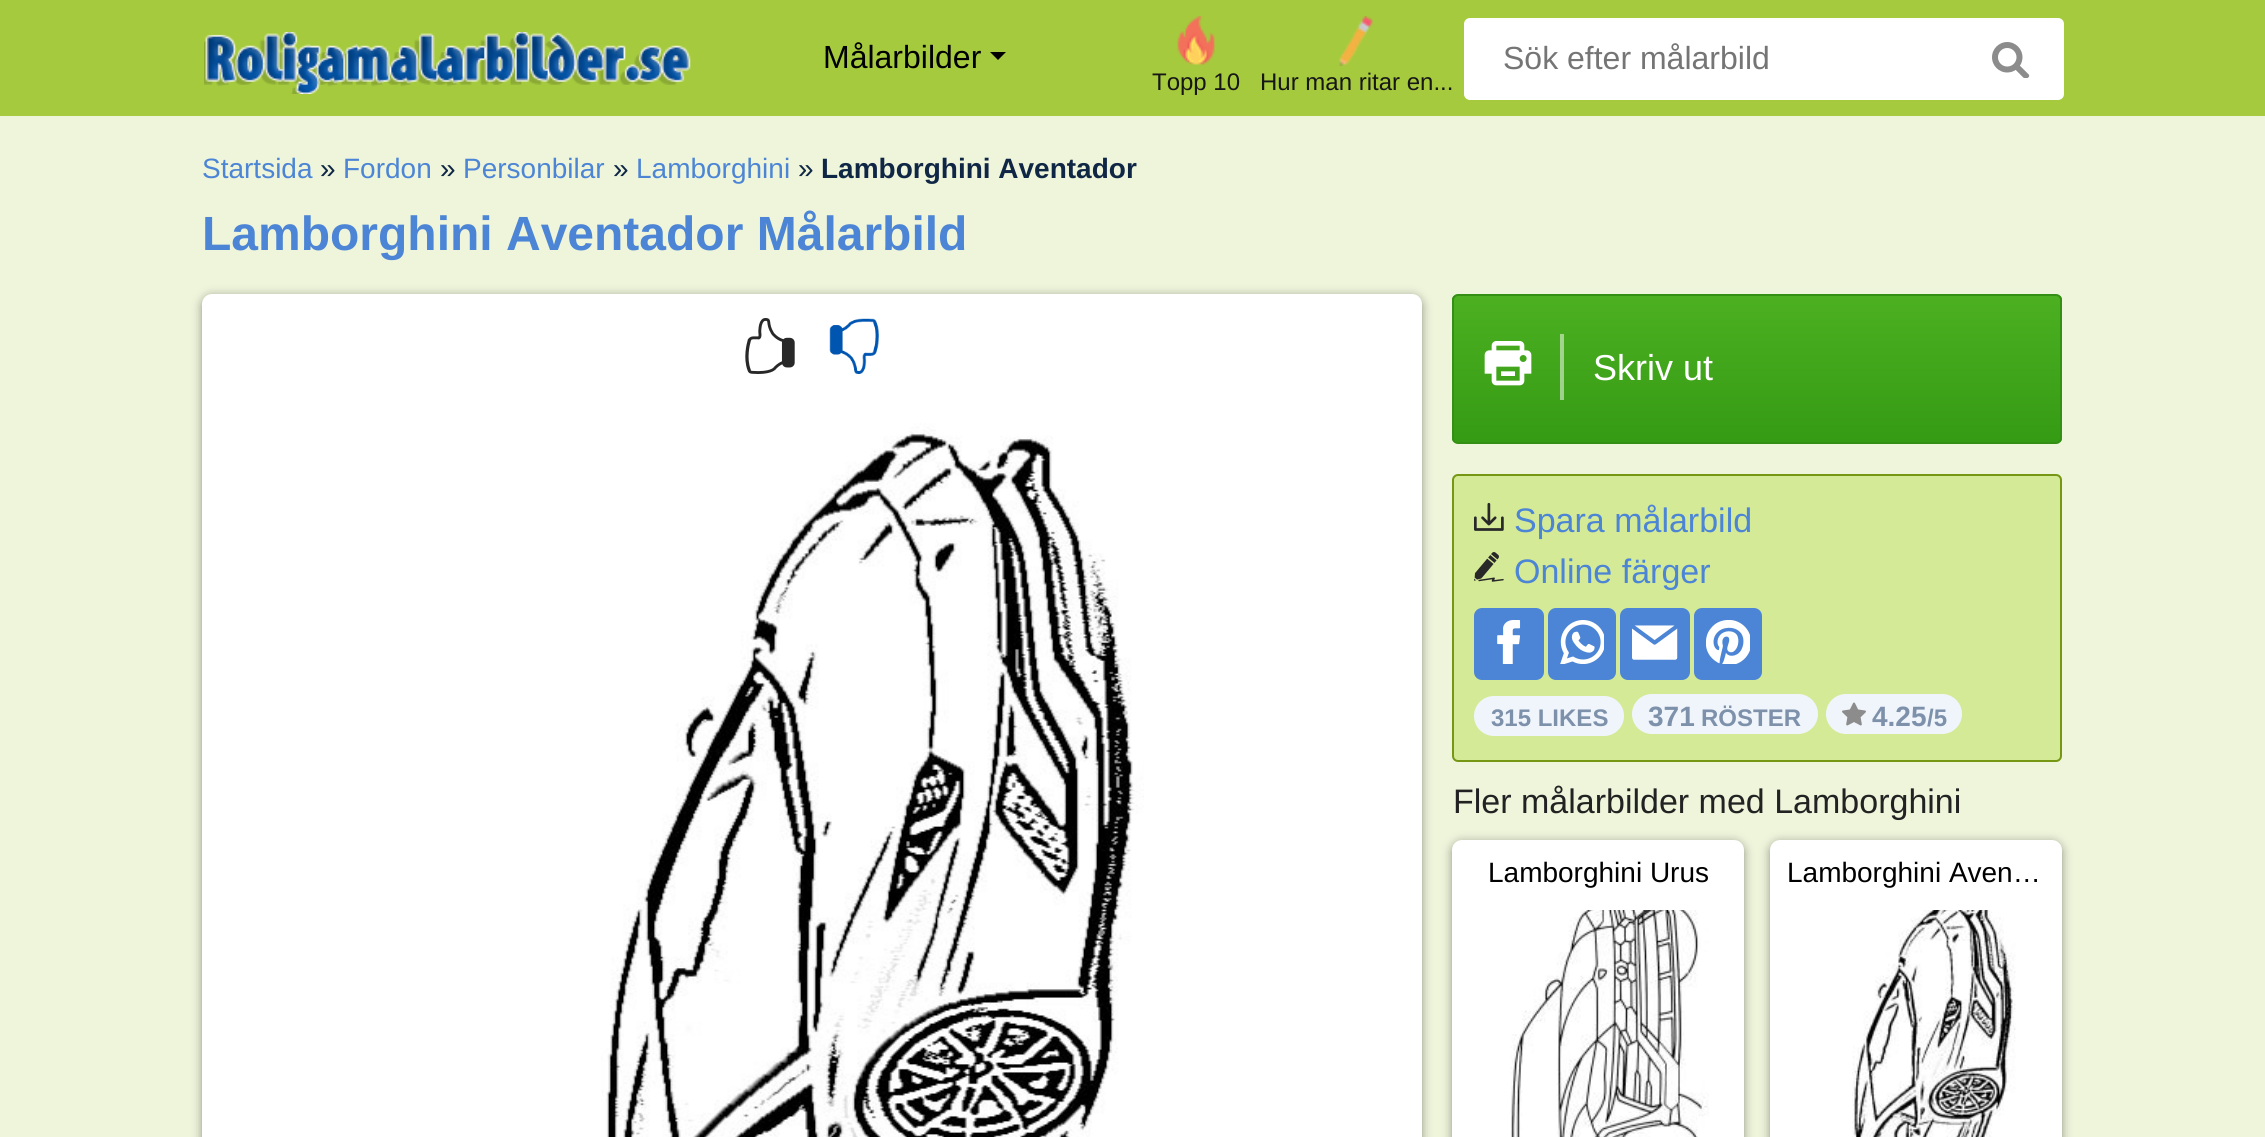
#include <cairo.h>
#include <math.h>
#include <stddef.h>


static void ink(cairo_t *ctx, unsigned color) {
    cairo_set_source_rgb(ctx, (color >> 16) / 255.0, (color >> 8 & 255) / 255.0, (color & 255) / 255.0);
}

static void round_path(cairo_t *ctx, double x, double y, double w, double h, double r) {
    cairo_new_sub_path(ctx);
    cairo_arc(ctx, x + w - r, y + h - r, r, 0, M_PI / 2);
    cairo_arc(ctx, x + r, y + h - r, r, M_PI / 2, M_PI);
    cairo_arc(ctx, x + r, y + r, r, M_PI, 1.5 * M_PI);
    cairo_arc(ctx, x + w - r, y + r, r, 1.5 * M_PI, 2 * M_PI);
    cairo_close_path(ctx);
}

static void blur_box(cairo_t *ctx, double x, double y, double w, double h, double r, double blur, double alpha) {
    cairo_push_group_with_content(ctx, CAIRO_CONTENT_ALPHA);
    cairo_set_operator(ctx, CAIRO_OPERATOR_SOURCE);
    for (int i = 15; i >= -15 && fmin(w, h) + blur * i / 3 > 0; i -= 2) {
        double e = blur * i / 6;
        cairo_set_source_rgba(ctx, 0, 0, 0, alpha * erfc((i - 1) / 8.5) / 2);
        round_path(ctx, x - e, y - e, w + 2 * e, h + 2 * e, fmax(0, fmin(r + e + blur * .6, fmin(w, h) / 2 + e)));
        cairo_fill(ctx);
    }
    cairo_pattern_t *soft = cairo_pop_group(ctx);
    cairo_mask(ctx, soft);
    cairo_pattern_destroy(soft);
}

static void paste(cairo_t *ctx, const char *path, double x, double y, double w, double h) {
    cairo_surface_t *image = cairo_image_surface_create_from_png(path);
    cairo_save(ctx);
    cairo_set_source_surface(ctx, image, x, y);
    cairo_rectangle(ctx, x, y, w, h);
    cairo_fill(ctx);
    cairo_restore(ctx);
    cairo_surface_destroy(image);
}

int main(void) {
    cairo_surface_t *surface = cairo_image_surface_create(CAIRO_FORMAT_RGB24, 2265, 1137);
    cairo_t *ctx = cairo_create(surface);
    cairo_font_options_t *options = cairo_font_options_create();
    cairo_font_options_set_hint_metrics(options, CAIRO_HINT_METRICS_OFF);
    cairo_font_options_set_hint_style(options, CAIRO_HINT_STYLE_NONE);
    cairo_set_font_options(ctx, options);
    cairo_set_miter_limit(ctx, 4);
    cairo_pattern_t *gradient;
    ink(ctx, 0xEEF5DB);
    cairo_paint(ctx);
    ink(ctx, 0xA5CA3E);
    cairo_rectangle(ctx, 0, 0, 2265, 116);
    cairo_fill(ctx);
    paste(ctx, "media/1.png", 204, 32, 487, 62);
    cairo_select_font_face(ctx, "Liberation Sans", CAIRO_FONT_SLANT_NORMAL, CAIRO_FONT_WEIGHT_NORMAL);
    cairo_set_font_size(ctx, 32);
    ink(ctx, 0x000000);
    cairo_move_to(ctx, 823, 68);
    cairo_show_text(ctx, "Målarbilder");
    cairo_new_path(ctx);
    cairo_move_to(ctx, 990, 52);
    cairo_line_to(ctx, 1006, 52);
    cairo_line_to(ctx, 998, 60);
    cairo_close_path(ctx);
    cairo_fill(ctx);
    ink(ctx, 0xFFFFFF);
    round_path(ctx, 1464, 18, 600, 82, 6);
    cairo_fill(ctx);
    ink(ctx, 0x757575);
    cairo_move_to(ctx, 1503, 69);
    cairo_show_text(ctx, "Sök efter målarbild");
    paste(ctx, "media/2.png", 1992, 42, 38, 36);
    paste(ctx, "media/3.png", 1177, 16, 38, 49);
    cairo_set_font_size(ctx, 24);
    ink(ctx, 0x171616);
    cairo_move_to(ctx, 1152, 90);
    cairo_show_text(ctx, "Topp 10");
    paste(ctx, "media/4.png", 1339, 16, 34, 50);
    cairo_move_to(ctx, 1260, 90);
    cairo_show_text(ctx, "Hur man ritar en...");
    cairo_set_font_size(ctx, 28);
    ink(ctx, 0x4C85D5);
    cairo_move_to(ctx, 202, 178);
    cairo_show_text(ctx, "Startsida");
    ink(ctx, 0x102645);
    cairo_move_to(ctx, 320, 178);
    cairo_show_text(ctx, "»");
    ink(ctx, 0x4C85D5);
    cairo_move_to(ctx, 343, 178);
    cairo_show_text(ctx, "Fordon");
    ink(ctx, 0x102645);
    cairo_move_to(ctx, 440, 178);
    cairo_show_text(ctx, "»");
    ink(ctx, 0x4C85D5);
    cairo_move_to(ctx, 463, 178);
    cairo_show_text(ctx, "Personbilar");
    ink(ctx, 0x102645);
    cairo_move_to(ctx, 613, 178);
    cairo_show_text(ctx, "»");
    ink(ctx, 0x4C85D5);
    cairo_move_to(ctx, 636, 178);
    cairo_show_text(ctx, "Lamborghini");
    ink(ctx, 0x102645);
    cairo_move_to(ctx, 798, 178);
    cairo_show_text(ctx, "»");
    cairo_select_font_face(ctx, "Liberation Sans", CAIRO_FONT_SLANT_NORMAL, CAIRO_FONT_WEIGHT_BOLD);
    cairo_move_to(ctx, 821, 178);
    cairo_show_text(ctx, "Lamborghini Aventador");
    cairo_set_font_size(ctx, 48);
    ink(ctx, 0x4C85D5);
    cairo_move_to(ctx, 202, 250);
    cairo_show_text(ctx, "Lamborghini Aventador Målarbild");
    ink(ctx, 0x000000);
    blur_box(ctx, 202, 296, 1220, 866, 10, 5, 0.4);
    ink(ctx, 0xFFFFFF);
    round_path(ctx, 202, 294, 1220, 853, 10);
    cairo_fill(ctx);
    paste(ctx, "media/5.png", 745, 318, 50, 56);
    paste(ctx, "media/6.png", 829, 318, 50, 56);
    paste(ctx, "media/7.png", 601, 423, 543, 714);
    cairo_save(ctx);
    round_path(ctx, 1452, 294, 610, 150, 6);
    cairo_clip(ctx);
    gradient = cairo_pattern_create_linear(1757, 296, 1757, 442);
    cairo_pattern_add_color_stop_rgba(gradient, 0, 0.298, 0.69, 0.129, 1);
    cairo_pattern_add_color_stop_rgba(gradient, 1, 0.208, 0.608, 0.078, 1);
    cairo_set_source(ctx, gradient);
    cairo_pattern_destroy(gradient);
    cairo_rectangle(ctx, 1452, 296, 610, 146);
    cairo_fill(ctx);
    cairo_restore(ctx);
    gradient = cairo_pattern_create_linear(1757, 296, 1757, 442);
    cairo_pattern_add_color_stop_rgba(gradient, 0, 0.651, 0.847, 0.565, 1);
    cairo_pattern_add_color_stop_rgba(gradient, 1, 0.604, 0.804, 0.541, 1);
    cairo_set_source(ctx, gradient);
    cairo_pattern_destroy(gradient);
    cairo_rectangle(ctx, 1560, 334, 4, 66);
    cairo_fill(ctx);
    round_path(ctx, 1453, 295, 608, 148, 5);
    ink(ctx, 0x349014);
    cairo_stroke(ctx);
    paste(ctx, "media/8.png", 1484, 341, 48, 45);
    cairo_select_font_face(ctx, "Liberation Sans", CAIRO_FONT_SLANT_NORMAL, CAIRO_FONT_WEIGHT_NORMAL);
    cairo_set_font_size(ctx, 36);
    ink(ctx, 0xFFFFFF);
    cairo_move_to(ctx, 1593, 380);
    cairo_show_text(ctx, "Skriv ut");
    ink(ctx, 0xD4EA97);
    round_path(ctx, 1453, 475, 608, 286, 5);
    cairo_fill_preserve(ctx);
    ink(ctx, 0x759714);
    cairo_stroke(ctx);
    paste(ctx, "media/9.png", 1474, 502, 30, 29);
    cairo_set_font_size(ctx, 34);
    ink(ctx, 0x4C85D5);
    cairo_move_to(ctx, 1514, 532);
    cairo_show_text(ctx, "Spara målarbild");
    paste(ctx, "media/10.png", 1474, 552, 30, 30);
    cairo_move_to(ctx, 1514, 583);
    cairo_show_text(ctx, "Online färger");
    round_path(ctx, 1474, 608, 70, 72, 8);
    cairo_fill(ctx);
    paste(ctx, "media/11.png", 1497, 620, 24, 44);
    round_path(ctx, 1548, 608, 68, 72, 8);
    cairo_fill(ctx);
    paste(ctx, "media/12.png", 1560, 620, 44, 44);
    round_path(ctx, 1620, 608, 70, 72, 8);
    cairo_fill(ctx);
    paste(ctx, "media/13.png", 1632, 625, 46, 35);
    round_path(ctx, 1694, 608, 68, 72, 8);
    cairo_fill(ctx);
    paste(ctx, "media/14.png", 1706, 620, 44, 44);
    ink(ctx, 0xF0F5FC);
    round_path(ctx, 1474, 696, 150, 40, 20);
    cairo_fill(ctx);
    cairo_select_font_face(ctx, "Liberation Sans", CAIRO_FONT_SLANT_NORMAL, CAIRO_FONT_WEIGHT_BOLD);
    cairo_set_font_size(ctx, 24);
    ink(ctx, 0x7E91AB);
    cairo_move_to(ctx, 1491, 726);
    cairo_show_text(ctx, "315 LIKES");
    ink(ctx, 0xF0F5FC);
    round_path(ctx, 1632, 694, 186, 40, 20);
    cairo_fill(ctx);
    cairo_set_font_size(ctx, 28);
    ink(ctx, 0x7E91AB);
    cairo_move_to(ctx, 1648, 726);
    cairo_show_text(ctx, "371");
    cairo_set_font_size(ctx, 24);
    cairo_move_to(ctx, 1701, 726);
    cairo_show_text(ctx, "RÖSTER");
    ink(ctx, 0xF0F5FC);
    round_path(ctx, 1826, 694, 136, 40, 20);
    cairo_fill(ctx);
    paste(ctx, "media/15.png", 1842, 702, 24, 24);
    cairo_set_font_size(ctx, 28);
    ink(ctx, 0x7E91AB);
    cairo_move_to(ctx, 1872, 726);
    cairo_show_text(ctx, "4.25");
    cairo_set_font_size(ctx, 24);
    cairo_move_to(ctx, 1927, 726);
    cairo_show_text(ctx, "/5");
    cairo_select_font_face(ctx, "Liberation Sans", CAIRO_FONT_SLANT_NORMAL, CAIRO_FONT_WEIGHT_NORMAL);
    cairo_set_font_size(ctx, 34);
    ink(ctx, 0x222222);
    cairo_move_to(ctx, 1453, 813);
    cairo_show_text(ctx, "Fler målarbilder med Lamborghini");
    ink(ctx, 0x000000);
    blur_box(ctx, 1452, 842, 292, 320, 10, 5, 0.4);
    ink(ctx, 0xFFFFFF);
    round_path(ctx, 1452, 840, 292, 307, 10);
    cairo_fill(ctx);
    cairo_set_font_size(ctx, 28);
    ink(ctx, 0x000000);
    cairo_move_to(ctx, 1488, 882);
    cairo_show_text(ctx, "Lamborghini Urus");
    paste(ctx, "media/16.png", 1510, 910, 199, 227);
    ink(ctx, 0x000000);
    blur_box(ctx, 1770, 842, 292, 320, 10, 5, 0.4);
    ink(ctx, 0xFFFFFF);
    round_path(ctx, 1770, 840, 292, 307, 10);
    cairo_fill(ctx);
    ink(ctx, 0x000000);
    cairo_move_to(ctx, 1787, 882);
    cairo_show_text(ctx, "Lamborghini Aven…");
    paste(ctx, "media/17.png", 1852, 910, 164, 227);
    cairo_surface_write_to_png(surface, "image.png");
    cairo_font_options_destroy(options);
    cairo_destroy(ctx);
    cairo_surface_destroy(surface);
    return 0;
}
